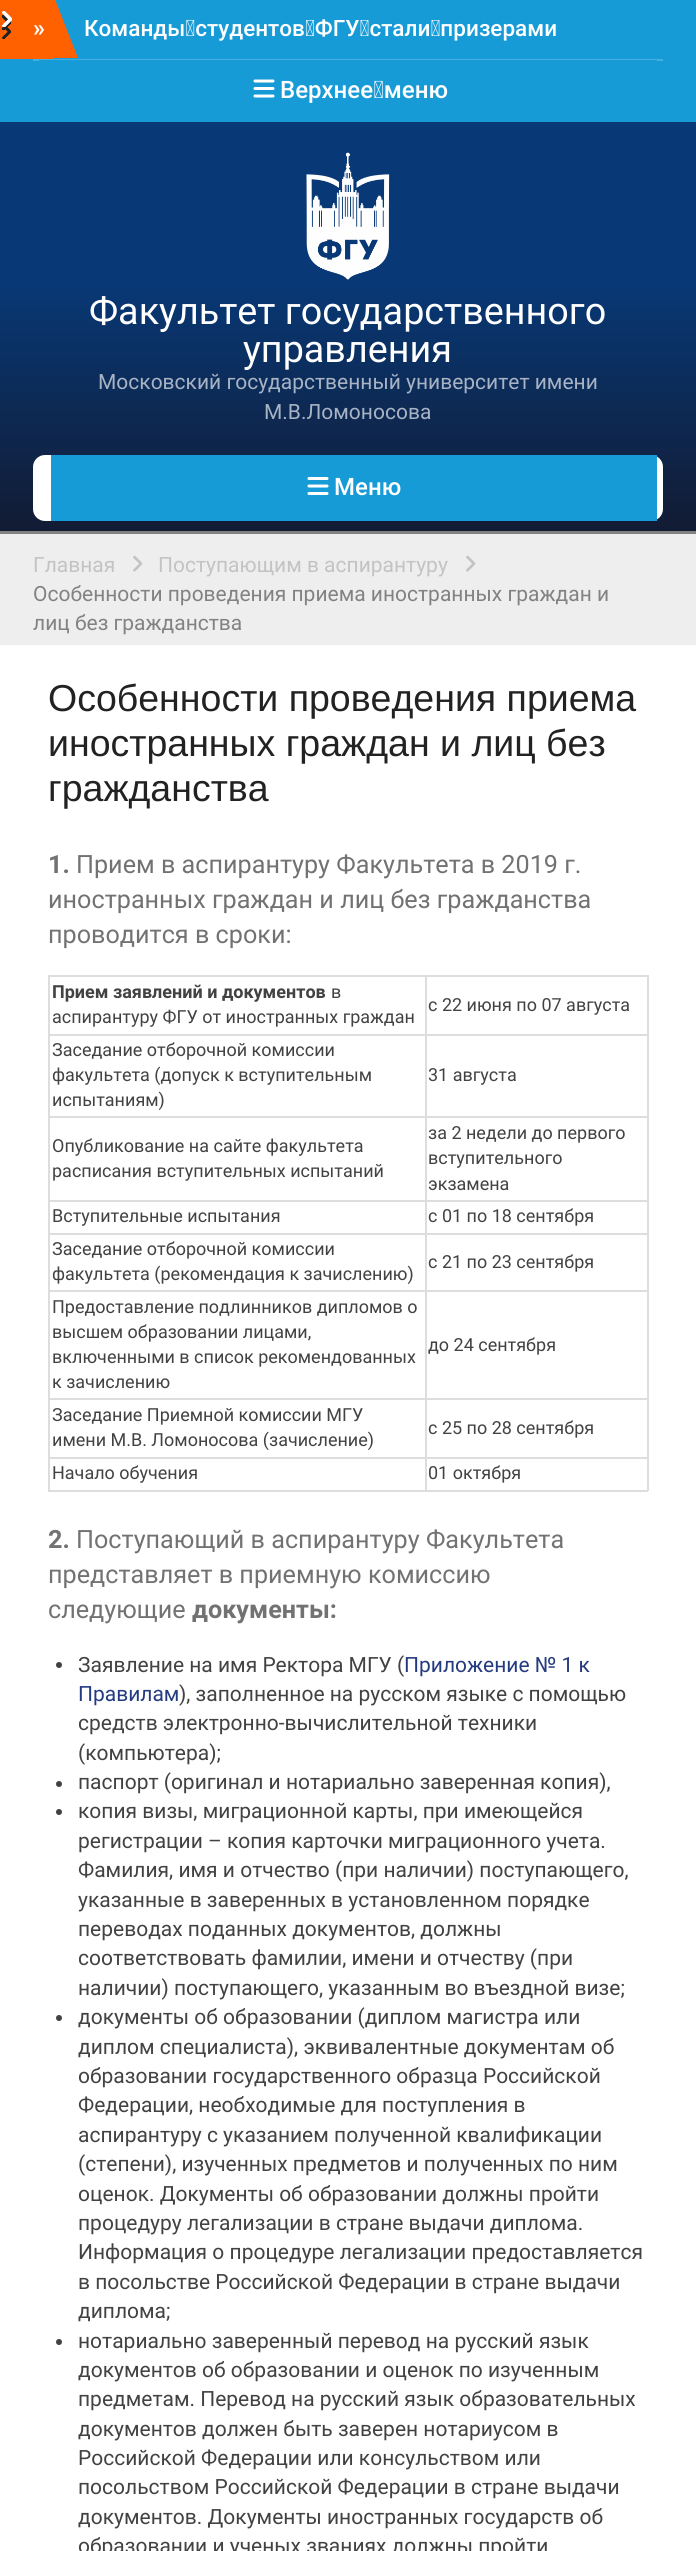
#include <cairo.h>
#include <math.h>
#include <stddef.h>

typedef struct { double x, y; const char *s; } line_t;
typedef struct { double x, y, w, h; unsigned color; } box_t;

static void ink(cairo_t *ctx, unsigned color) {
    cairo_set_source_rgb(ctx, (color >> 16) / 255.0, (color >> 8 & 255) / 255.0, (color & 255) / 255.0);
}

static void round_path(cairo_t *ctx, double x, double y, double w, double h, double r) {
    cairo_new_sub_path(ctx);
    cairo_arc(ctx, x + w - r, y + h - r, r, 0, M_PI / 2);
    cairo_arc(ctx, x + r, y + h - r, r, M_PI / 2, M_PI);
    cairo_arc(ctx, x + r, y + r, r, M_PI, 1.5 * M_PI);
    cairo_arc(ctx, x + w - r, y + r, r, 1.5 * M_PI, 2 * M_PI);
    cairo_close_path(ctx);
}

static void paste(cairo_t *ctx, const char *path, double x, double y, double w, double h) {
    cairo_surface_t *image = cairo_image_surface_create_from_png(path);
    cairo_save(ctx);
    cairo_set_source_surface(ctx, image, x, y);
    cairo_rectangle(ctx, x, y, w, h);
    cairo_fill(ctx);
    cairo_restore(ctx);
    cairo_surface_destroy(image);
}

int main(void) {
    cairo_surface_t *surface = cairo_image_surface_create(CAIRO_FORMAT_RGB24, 696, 2551);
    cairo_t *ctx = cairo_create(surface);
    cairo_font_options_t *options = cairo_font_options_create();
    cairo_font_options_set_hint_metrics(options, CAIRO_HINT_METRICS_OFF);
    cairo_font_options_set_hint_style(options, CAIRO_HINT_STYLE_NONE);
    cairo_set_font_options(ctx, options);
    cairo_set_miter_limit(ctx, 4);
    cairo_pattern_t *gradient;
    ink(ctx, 0xFFFFFF);
    cairo_paint(ctx);
    ink(ctx, 0x179BD7);
    cairo_rectangle(ctx, 0, 0, 696, 122);
    cairo_fill(ctx);
    ink(ctx, 0xFF6000);
    cairo_rectangle(ctx, 0, 0, 54, 59);
    cairo_fill(ctx);
    paste(ctx, "media/19.png", 2, 15, 9, 15);
    paste(ctx, "media/20.png", 2, 15, 9, 15);
    paste(ctx, "media/21.png", 2, 15, 9, 15);
    paste(ctx, "media/22.png", 2, 15, 9, 15);
    paste(ctx, "media/23.png", 2, 15, 9, 15);
    paste(ctx, "media/24.png", 2, 15, 9, 15);
    paste(ctx, "media/25.png", 2, 15, 9, 15);
    paste(ctx, "media/26.png", 2, 15, 9, 15);
    paste(ctx, "media/27.png", 2, 15, 6, 15);
    paste(ctx, "media/28.png", 2, 15, 5, 13);
    paste(ctx, "media/37.png", 2, 24, 9, 15);
    paste(ctx, "media/38.png", 2, 24, 9, 15);
    paste(ctx, "media/39.png", 2, 24, 9, 15);
    paste(ctx, "media/29.png", 2, 15, 5, 13);
    paste(ctx, "media/30.png", 2, 15, 5, 13);
    paste(ctx, "media/31.png", 2, 15, 5, 13);
    paste(ctx, "media/32.png", 2, 15, 5, 13);
    paste(ctx, "media/33.png", 2, 15, 5, 13);
    paste(ctx, "media/34.png", 2, 15, 5, 13);
    paste(ctx, "media/35.png", 2, 15, 5, 13);
    paste(ctx, "media/36.png", 2, 23, 5, 5);
    paste(ctx, "media/1.png", 2, 11, 10, 16);
    paste(ctx, "media/2.png", 2, 11, 10, 16);
    paste(ctx, "media/3.png", 2, 11, 10, 16);
    paste(ctx, "media/4.png", 2, 11, 10, 16);
    paste(ctx, "media/5.png", 2, 11, 10, 16);
    paste(ctx, "media/6.png", 2, 11, 10, 16);
    paste(ctx, "media/7.png", 2, 11, 10, 16);
    paste(ctx, "media/8.png", 2, 11, 10, 16);
    paste(ctx, "media/9.png", 2, 11, 10, 16);
    paste(ctx, "media/10.png", 2, 11, 10, 16);
    paste(ctx, "media/11.png", 2, 11, 10, 16);
    paste(ctx, "media/12.png", 2, 11, 10, 16);
    paste(ctx, "media/13.png", 2, 11, 10, 16);
    paste(ctx, "media/14.png", 2, 11, 10, 16);
    cairo_select_font_face(ctx, "Roboto", CAIRO_FONT_SLANT_NORMAL, CAIRO_FONT_WEIGHT_BOLD);
    cairo_set_font_size(ctx, 24);
    ink(ctx, 0xFFFFFF);
    cairo_move_to(ctx, 33, 36);
    cairo_show_text(ctx, "»");
    ink(ctx, 0xFF6000);
    cairo_new_path(ctx);
    cairo_move_to(ctx, 54, 58);
    cairo_line_to(ctx, 54, -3);
    cairo_line_to(ctx, 78, 58);
    cairo_close_path(ctx);
    cairo_fill(ctx);
    cairo_select_font_face(ctx, "Roboto Medium", CAIRO_FONT_SLANT_NORMAL, CAIRO_FONT_WEIGHT_NORMAL);
    cairo_set_font_size(ctx, 22.5);
    ink(ctx, 0xFFFFFF);
    cairo_move_to(ctx, 84, 36);
    cairo_show_text(ctx, "Команды студентов ФГУ стали призерами");
    ink(ctx, 0x45AFDF);
    cairo_rectangle(ctx, 33, 59, 630, 2);
    cairo_fill(ctx);
    ink(ctx, 0x179BD7);
    cairo_rectangle(ctx, 39, 60, 618, 1);
    cairo_fill(ctx);
    paste(ctx, "media/15.png", 253, 79, 22, 19);
    cairo_set_font_size(ctx, 24);
    ink(ctx, 0xFFFFFF);
    cairo_move_to(ctx, 280, 98);
    cairo_show_text(ctx, "Верхнее меню");
    gradient = cairo_pattern_create_linear(348, 121, 348, 531);
    cairo_pattern_add_color_stop_rgba(gradient, 0.1, 0.031, 0.22, 0.459, 1);
    cairo_pattern_add_color_stop_rgba(gradient, 0.4, 0.031, 0.22, 0.459, 1);
    cairo_pattern_add_color_stop_rgba(gradient, 1, 0.071, 0.106, 0.2, 1);
    cairo_set_source(ctx, gradient);
    cairo_pattern_destroy(gradient);
    cairo_rectangle(ctx, 0, 122, 696, 409);
    cairo_fill(ctx);
    paste(ctx, "media/16.png", 306, 152, 84, 128);
    cairo_select_font_face(ctx, "Roboto", CAIRO_FONT_SLANT_NORMAL, CAIRO_FONT_WEIGHT_NORMAL);
    cairo_set_font_size(ctx, 37.75);
    ink(ctx, 0xFFFFFF);
    cairo_move_to(ctx, 89, 324);
    cairo_show_text(ctx, "Факультет государственного");
    cairo_move_to(ctx, 243, 362);
    cairo_show_text(ctx, "управления");
    cairo_set_font_size(ctx, 21);
    ink(ctx, 0xA8B3C4);
    cairo_move_to(ctx, 98, 389);
    cairo_show_text(ctx, "Московский государственный университет имени");
    cairo_move_to(ctx, 264, 419);
    cairo_show_text(ctx, "М.В.Ломоносова");
    ink(ctx, 0xFFFFFF);
    round_path(ctx, 33, 455, 630, 66, 12);
    cairo_fill(ctx);
    ink(ctx, 0x179BD7);
    cairo_rectangle(ctx, 51, 455, 606, 66);
    cairo_fill(ctx);
    paste(ctx, "media/17.png", 307, 477, 22, 18);
    cairo_select_font_face(ctx, "Roboto Medium", CAIRO_FONT_SLANT_NORMAL, CAIRO_FONT_WEIGHT_NORMAL);
    cairo_set_font_size(ctx, 24);
    ink(ctx, 0xFFFFFF);
    cairo_move_to(ctx, 334, 495);
    cairo_show_text(ctx, "Меню");
    ink(ctx, 0xEEEEEE);
    cairo_rectangle(ctx, 0, 534, 696, 111);
    cairo_fill(ctx);
    ink(ctx, 0x828282);
    cairo_rectangle(ctx, 0, 531, 696, 3);
    cairo_fill(ctx);
    cairo_select_font_face(ctx, "Roboto", CAIRO_FONT_SLANT_NORMAL, CAIRO_FONT_WEIGHT_NORMAL);
    cairo_set_font_size(ctx, 21);
    ink(ctx, 0xC3C3C3);
    cairo_move_to(ctx, 33, 572);
    cairo_show_text(ctx, "Главная");
    paste(ctx, "media/18.png", 133, 555, 10, 17);
    cairo_move_to(ctx, 158, 572);
    cairo_show_text(ctx, "Поступающим в аспирантуру");
    paste(ctx, "media/18.png", 466, 555, 10, 17);
    ink(ctx, 0x828282);
    cairo_move_to(ctx, 33, 601);
    cairo_show_text(ctx, "Особенности проведения приема иностранных граждан и");
    cairo_move_to(ctx, 33, 630);
    cairo_show_text(ctx, "лиц без гражданства");
    cairo_select_font_face(ctx, "Liberation Sans", CAIRO_FONT_SLANT_NORMAL, CAIRO_FONT_WEIGHT_NORMAL);
    cairo_set_font_size(ctx, 37.5);
    ink(ctx, 0x222222);
    {
        static const line_t items[] = {
            {48, 711, "Особенности проведения приема"},
            {48, 756, "иностранных граждан и лиц без"},
            {48, 801, "гражданства"},
        };
        for (size_t i = 0; i < sizeof items / sizeof *items; i++) {
            cairo_move_to(ctx, items[i].x, items[i].y);
            cairo_show_text(ctx, items[i].s);
        }
    }
    cairo_select_font_face(ctx, "Roboto", CAIRO_FONT_SLANT_NORMAL, CAIRO_FONT_WEIGHT_BOLD);
    cairo_set_font_size(ctx, 25.2);
    ink(ctx, 0x727272);
    cairo_move_to(ctx, 48, 873);
    cairo_show_text(ctx, "1.");
    cairo_select_font_face(ctx, "Roboto", CAIRO_FONT_SLANT_NORMAL, CAIRO_FONT_WEIGHT_NORMAL);
    {
        static const line_t items[] = {
            {76, 873, "Прием в аспирантуру Факультета в 2019 г."},
            {48, 908, "иностранных граждан и лиц без гражданства"},
            {48, 943, "проводится в сроки:"},
        };
        for (size_t i = 0; i < sizeof items / sizeof *items; i++) {
            cairo_move_to(ctx, items[i].x, items[i].y);
            cairo_show_text(ctx, items[i].s);
        }
    }
    {
        static const box_t items[] = {
            {425, 975, 223, 2, 0xDDDDDD},
            {425, 1034, 223, 2, 0xDDDDDD},
            {425, 1116, 223, 2, 0xDDDDDD},
            {425, 1200, 223, 2, 0xDDDDDD},
            {425, 1233, 223, 2, 0xDDDDDD},
            {425, 1290, 223, 2, 0xDDDDDD},
            {425, 1398, 223, 2, 0xDDDDDD},
            {425, 1457, 223, 2, 0xDDDDDD},
            {647, 1457, 2, 34, 0xDDDDDD},
            {425, 1490, 223, 2, 0xDDDDDD},
            {425, 1457, 2, 34, 0xDDDDDD},
            {48, 1457, 378, 2, 0xDDDDDD},
            {425, 1398, 2, 60, 0xDDDDDD},
            {48, 1398, 378, 2, 0xDDDDDD},
            {425, 1290, 2, 110, 0xDDDDDD},
            {48, 1290, 378, 2, 0xDDDDDD},
            {425, 1233, 2, 59, 0xDDDDDD},
            {48, 1233, 378, 2, 0xDDDDDD},
            {425, 1200, 2, 35, 0xDDDDDD},
            {48, 1200, 378, 2, 0xDDDDDD},
            {425, 1116, 2, 86, 0xDDDDDD},
            {48, 1116, 378, 2, 0xDDDDDD},
            {425, 1034, 2, 84, 0xDDDDDD},
            {48, 1034, 378, 2, 0xDDDDDD},
            {425, 975, 2, 60, 0xDDDDDD},
            {48, 975, 378, 2, 0xDDDDDD},
            {48, 1490, 378, 2, 0xDDDDDD},
            {48, 1457, 2, 34, 0xDDDDDD},
            {48, 1398, 2, 60, 0xDDDDDD},
            {48, 1290, 2, 110, 0xDDDDDD},
            {48, 1233, 2, 59, 0xDDDDDD},
            {48, 1200, 2, 35, 0xDDDDDD},
            {48, 1116, 2, 86, 0xDDDDDD},
            {48, 1034, 2, 84, 0xDDDDDD},
            {48, 975, 2, 60, 0xDDDDDD},
        };
        for (size_t i = 0; i < sizeof items / sizeof *items; i++) {
            ink(ctx, items[i].color);
            cairo_rectangle(ctx, items[i].x, items[i].y, items[i].w, items[i].h);
            cairo_fill(ctx);
        }
    }
    cairo_select_font_face(ctx, "Roboto", CAIRO_FONT_SLANT_NORMAL, CAIRO_FONT_WEIGHT_BOLD);
    cairo_set_font_size(ctx, 18);
    ink(ctx, 0x424242);
    cairo_move_to(ctx, 52, 998);
    cairo_show_text(ctx, "Прием заявлений и документов");
    cairo_select_font_face(ctx, "Roboto", CAIRO_FONT_SLANT_NORMAL, CAIRO_FONT_WEIGHT_NORMAL);
    cairo_move_to(ctx, 331, 998);
    cairo_show_text(ctx, "в");
    cairo_move_to(ctx, 52, 1023);
    cairo_show_text(ctx, "аспирантуру ФГУ от иностранных граждан");
    {
        static const box_t items[] = {
            {647, 1398, 2, 60, 0xDDDDDD},
            {647, 1290, 2, 110, 0xDDDDDD},
            {647, 1233, 2, 59, 0xDDDDDD},
            {647, 1200, 2, 35, 0xDDDDDD},
            {647, 1116, 2, 86, 0xDDDDDD},
            {647, 1034, 2, 84, 0xDDDDDD},
            {647, 975, 2, 60, 0xDDDDDD},
        };
        for (size_t i = 0; i < sizeof items / sizeof *items; i++) {
            ink(ctx, items[i].color);
            cairo_rectangle(ctx, items[i].x, items[i].y, items[i].w, items[i].h);
            cairo_fill(ctx);
        }
    }
    ink(ctx, 0x424242);
    {
        static const line_t items[] = {
            {428, 1011, "с 22 июня по 07 августа"},
            {52, 1056, "Заседание отборочной комиссии"},
            {52, 1081, "факультета (допуск к вступительным"},
            {52, 1106, "испытаниям)"},
            {428, 1081, "31 августа"},
            {52, 1152, "Опубликование на сайте факультета"},
            {52, 1177, "расписания вступительных испытаний"},
            {428, 1139, "за 2 недели до первого"},
            {428, 1164, "вступительного"},
            {428, 1190, "экзамена"},
            {52, 1222, "Вступительные испытания"},
            {428, 1222, "с 01 по 18 сентября"},
            {52, 1255, "Заседание отборочной комиссии"},
            {52, 1280, "факультета (рекомендация к зачислению)"},
            {428, 1268, "с 21 по 23 сентября"},
            {52, 1313, "Предоставление подлинников дипломов о"},
            {52, 1338, "высшем образовании лицами,"},
            {52, 1363, "включенными в список рекомендованных"},
            {52, 1388, "к зачислению"},
            {428, 1351, "до 24 сентября"},
            {52, 1421, "Заседание Приемной комиссии МГУ"},
            {52, 1446, "имени М.В. Ломоносова (зачисление)"},
            {428, 1434, "с 25 по 28 сентября"},
            {52, 1479, "Начало обучения"},
            {428, 1479, "01 октября"},
        };
        for (size_t i = 0; i < sizeof items / sizeof *items; i++) {
            cairo_move_to(ctx, items[i].x, items[i].y);
            cairo_show_text(ctx, items[i].s);
        }
    }
    cairo_select_font_face(ctx, "Roboto", CAIRO_FONT_SLANT_NORMAL, CAIRO_FONT_WEIGHT_BOLD);
    cairo_set_font_size(ctx, 25.2);
    ink(ctx, 0x727272);
    cairo_move_to(ctx, 48, 1548);
    cairo_show_text(ctx, "2.");
    cairo_select_font_face(ctx, "Roboto", CAIRO_FONT_SLANT_NORMAL, CAIRO_FONT_WEIGHT_NORMAL);
    {
        static const line_t items[] = {
            {76, 1548, "Поступающий в аспирантуру Факультета"},
            {48, 1583, "представляет в приемную комиссию"},
            {48, 1618, "следующие"},
        };
        for (size_t i = 0; i < sizeof items / sizeof *items; i++) {
            cairo_move_to(ctx, items[i].x, items[i].y);
            cairo_show_text(ctx, items[i].s);
        }
    }
    cairo_select_font_face(ctx, "Roboto", CAIRO_FONT_SLANT_NORMAL, CAIRO_FONT_WEIGHT_BOLD);
    cairo_move_to(ctx, 192, 1618);
    cairo_show_text(ctx, "документы:");
    ink(ctx, 0x424242);
    cairo_new_path(ctx);
    cairo_arc(ctx, 59, 1665, 3, 0, 2 * M_PI);
    cairo_fill(ctx);
    cairo_select_font_face(ctx, "Roboto", CAIRO_FONT_SLANT_NORMAL, CAIRO_FONT_WEIGHT_NORMAL);
    cairo_set_font_size(ctx, 21);
    cairo_move_to(ctx, 78, 1672);
    cairo_show_text(ctx, "Заявление на имя Ректора МГУ (");
    ink(ctx, 0x253B80);
    cairo_move_to(ctx, 404, 1672);
    cairo_show_text(ctx, "Приложение № 1 к");
    cairo_move_to(ctx, 78, 1701);
    cairo_show_text(ctx, "Правилам");
    ink(ctx, 0x424242);
    {
        static const line_t items[] = {
            {179, 1701, "), заполненное на русском языке с помощью"},
            {78, 1730, "средств электронно-вычислительной техники"},
            {78, 1760, "(компьютера);"},
        };
        for (size_t i = 0; i < sizeof items / sizeof *items; i++) {
            cairo_move_to(ctx, items[i].x, items[i].y);
            cairo_show_text(ctx, items[i].s);
        }
    }
    cairo_new_path(ctx);
    cairo_arc(ctx, 59, 1784, 3, 0, 2 * M_PI);
    cairo_fill(ctx);
    cairo_move_to(ctx, 78, 1789);
    cairo_show_text(ctx, "паспорт (оригинал и нотариально заверенная копия),");
    cairo_new_path(ctx);
    cairo_arc(ctx, 59, 1812, 3, 0, 2 * M_PI);
    cairo_fill(ctx);
    {
        static const line_t items[] = {
            {78, 1818, "копия визы, миграционной карты, при имеющейся"},
            {78, 1848, "регистрации – копия карточки миграционного учета."},
            {78, 1877, "Фамилия, имя и отчество (при наличии) поступающего,"},
            {78, 1907, "указанные в заверенных в установленном порядке"},
            {78, 1936, "переводах поданных документов, должны"},
            {78, 1965, "соответствовать фамилии, имени и отчеству (при"},
            {78, 1995, "наличии) поступающего, указанным во въездной визе;"},
        };
        for (size_t i = 0; i < sizeof items / sizeof *items; i++) {
            cairo_move_to(ctx, items[i].x, items[i].y);
            cairo_show_text(ctx, items[i].s);
        }
    }
    cairo_new_path(ctx);
    cairo_arc(ctx, 59, 2018, 3, 0, 2 * M_PI);
    cairo_fill(ctx);
    {
        static const line_t items[] = {
            {78, 2024, "документы об образовании (диплом магистра или"},
            {78, 2054, "диплом специалиста), эквивалентные документам об"},
            {78, 2083, "образовании государственного образца Российской"},
            {78, 2112, "Федерации, необходимые для поступления в"},
            {78, 2142, "аспирантуру с указанием полученной квалификации"},
            {78, 2171, "(степени), изученных предметов и полученных по ним"},
            {78, 2201, "оценок. Документы об образовании должны пройти"},
            {78, 2230, "процедуру легализации в стране выдачи диплома."},
            {78, 2259, "Информация о процедуре легализации предоставляется"},
            {78, 2289, "в посольстве Российской Федерации в стране выдачи"},
            {78, 2318, "диплома;"},
        };
        for (size_t i = 0; i < sizeof items / sizeof *items; i++) {
            cairo_move_to(ctx, items[i].x, items[i].y);
            cairo_show_text(ctx, items[i].s);
        }
    }
    cairo_new_path(ctx);
    cairo_arc(ctx, 59, 2342, 3, 0, 2 * M_PI);
    cairo_fill(ctx);
    {
        static const line_t items[] = {
            {78, 2348, "нотариально заверенный перевод на русский язык"},
            {78, 2377, "документов об образовании и оценок по изученным"},
            {78, 2406, "предметам. Перевод на русский язык образовательных"},
            {78, 2436, "документов должен быть заверен нотариусом в"},
            {78, 2465, "Российской Федерации или консульством или"},
            {78, 2494, "посольством Российской Федерации в стране выдачи"},
            {78, 2524, "документов. Документы иностранных государств об"},
            {78, 2553, "образовании и ученых званиях должны пройти"},
        };
        for (size_t i = 0; i < sizeof items / sizeof *items; i++) {
            cairo_move_to(ctx, items[i].x, items[i].y);
            cairo_show_text(ctx, items[i].s);
        }
    }
    cairo_surface_write_to_png(surface, "image.png");
    cairo_font_options_destroy(options);
    cairo_destroy(ctx);
    cairo_surface_destroy(surface);
    return 0;
}
